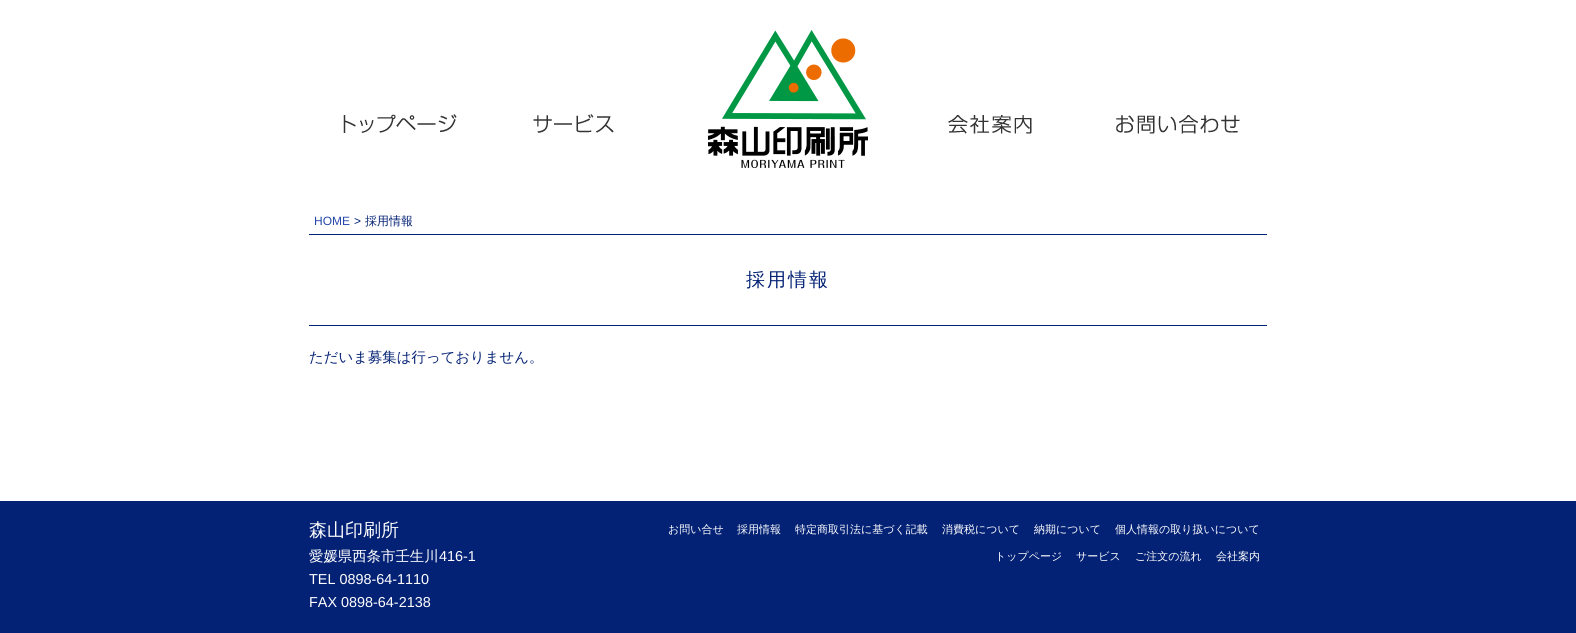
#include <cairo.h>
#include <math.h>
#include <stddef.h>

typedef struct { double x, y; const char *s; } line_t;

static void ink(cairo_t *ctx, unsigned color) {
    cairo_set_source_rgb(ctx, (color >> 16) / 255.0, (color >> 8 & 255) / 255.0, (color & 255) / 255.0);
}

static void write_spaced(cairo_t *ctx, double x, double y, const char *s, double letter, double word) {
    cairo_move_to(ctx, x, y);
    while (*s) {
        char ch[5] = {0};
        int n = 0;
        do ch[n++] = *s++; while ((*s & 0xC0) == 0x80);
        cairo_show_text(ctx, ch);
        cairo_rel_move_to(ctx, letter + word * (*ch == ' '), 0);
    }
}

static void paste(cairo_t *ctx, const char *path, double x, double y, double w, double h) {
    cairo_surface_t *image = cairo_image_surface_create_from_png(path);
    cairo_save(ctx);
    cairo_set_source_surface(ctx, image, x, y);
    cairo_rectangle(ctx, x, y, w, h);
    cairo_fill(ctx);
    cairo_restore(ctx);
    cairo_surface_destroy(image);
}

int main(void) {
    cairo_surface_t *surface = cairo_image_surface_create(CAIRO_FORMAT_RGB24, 1576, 633);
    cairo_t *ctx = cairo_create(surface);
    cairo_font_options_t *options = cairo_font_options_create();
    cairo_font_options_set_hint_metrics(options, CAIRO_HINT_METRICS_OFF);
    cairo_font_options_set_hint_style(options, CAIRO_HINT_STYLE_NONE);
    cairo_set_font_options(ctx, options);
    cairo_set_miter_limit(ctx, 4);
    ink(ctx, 0xFFFFFF);
    cairo_paint(ctx);
    paste(ctx, "media/1.png", 708, 30, 160, 138);
    paste(ctx, "media/2.png", 343, 114, 114, 19);
    paste(ctx, "media/3.png", 533, 114, 81, 19);
    paste(ctx, "media/4.png", 948, 115, 84, 19);
    paste(ctx, "media/5.png", 1116, 115, 124, 19);
    cairo_select_font_face(ctx, "Liberation Sans", CAIRO_FONT_SLANT_NORMAL, CAIRO_FONT_WEIGHT_NORMAL);
    cairo_set_font_size(ctx, 12);
    ink(ctx, 0x2448AB);
    cairo_move_to(ctx, 314, 225);
    cairo_show_text(ctx, "HOME");
    ink(ctx, 0x042275);
    cairo_move_to(ctx, 354, 225);
    cairo_show_text(ctx, ">");
    cairo_select_font_face(ctx, "WenQuanYi Zen Hei Medium", CAIRO_FONT_SLANT_NORMAL, CAIRO_FONT_WEIGHT_NORMAL);
    cairo_move_to(ctx, 365, 225);
    cairo_show_text(ctx, "採用情報");
    cairo_rectangle(ctx, 309, 234, 958, 1);
    cairo_fill(ctx);
    cairo_rectangle(ctx, 309, 325, 958, 1);
    cairo_fill(ctx);
    cairo_set_font_size(ctx, 19);
    write_spaced(ctx, 746, 286, "採用情報", 2, 0);
    cairo_set_font_size(ctx, 14.4);
    cairo_move_to(ctx, 309, 362);
    cairo_show_text(ctx, "ただいま募集は行っておりません。");
    cairo_rectangle(ctx, 0, 501, 1576, 132);
    cairo_fill(ctx);
    cairo_set_font_size(ctx, 18);
    ink(ctx, 0xFFFFFF);
    cairo_move_to(ctx, 309, 536);
    cairo_show_text(ctx, "森山印刷所");
    cairo_set_font_size(ctx, 14.4);
    cairo_move_to(ctx, 309, 561);
    cairo_show_text(ctx, "愛媛県西条市壬生川");
    cairo_select_font_face(ctx, "Liberation Sans", CAIRO_FONT_SLANT_NORMAL, CAIRO_FONT_WEIGHT_NORMAL);
    {
        static const line_t items[] = {
            {439, 561, "416-1"},
            {309, 584, "TEL 0898-64-1110"},
            {309, 607, "FAX 0898-64-2138"},
        };
        for (size_t i = 0; i < sizeof items / sizeof *items; i++) {
            cairo_move_to(ctx, items[i].x, items[i].y);
            cairo_show_text(ctx, items[i].s);
        }
    }
    cairo_select_font_face(ctx, "WenQuanYi Zen Hei Medium", CAIRO_FONT_SLANT_NORMAL, CAIRO_FONT_WEIGHT_NORMAL);
    cairo_set_font_size(ctx, 11);
    {
        static const line_t items[] = {
            {668, 533, "お問い合せ"},
            {737, 533, "採用情報"},
            {795, 533, "特定商取引法に基づく記載"},
            {942, 533, "消費税について"},
            {1034, 533, "納期について"},
            {1115, 533, "個人情報の取り扱いについて"},
            {995, 560, "トップページ"},
            {1076, 560, "サービス"},
            {1135, 560, "ご注文の流れ"},
            {1216, 560, "会社案内"},
        };
        for (size_t i = 0; i < sizeof items / sizeof *items; i++) {
            cairo_move_to(ctx, items[i].x, items[i].y);
            cairo_show_text(ctx, items[i].s);
        }
    }
    cairo_surface_write_to_png(surface, "image.png");
    cairo_font_options_destroy(options);
    cairo_destroy(ctx);
    cairo_surface_destroy(surface);
    return 0;
}
